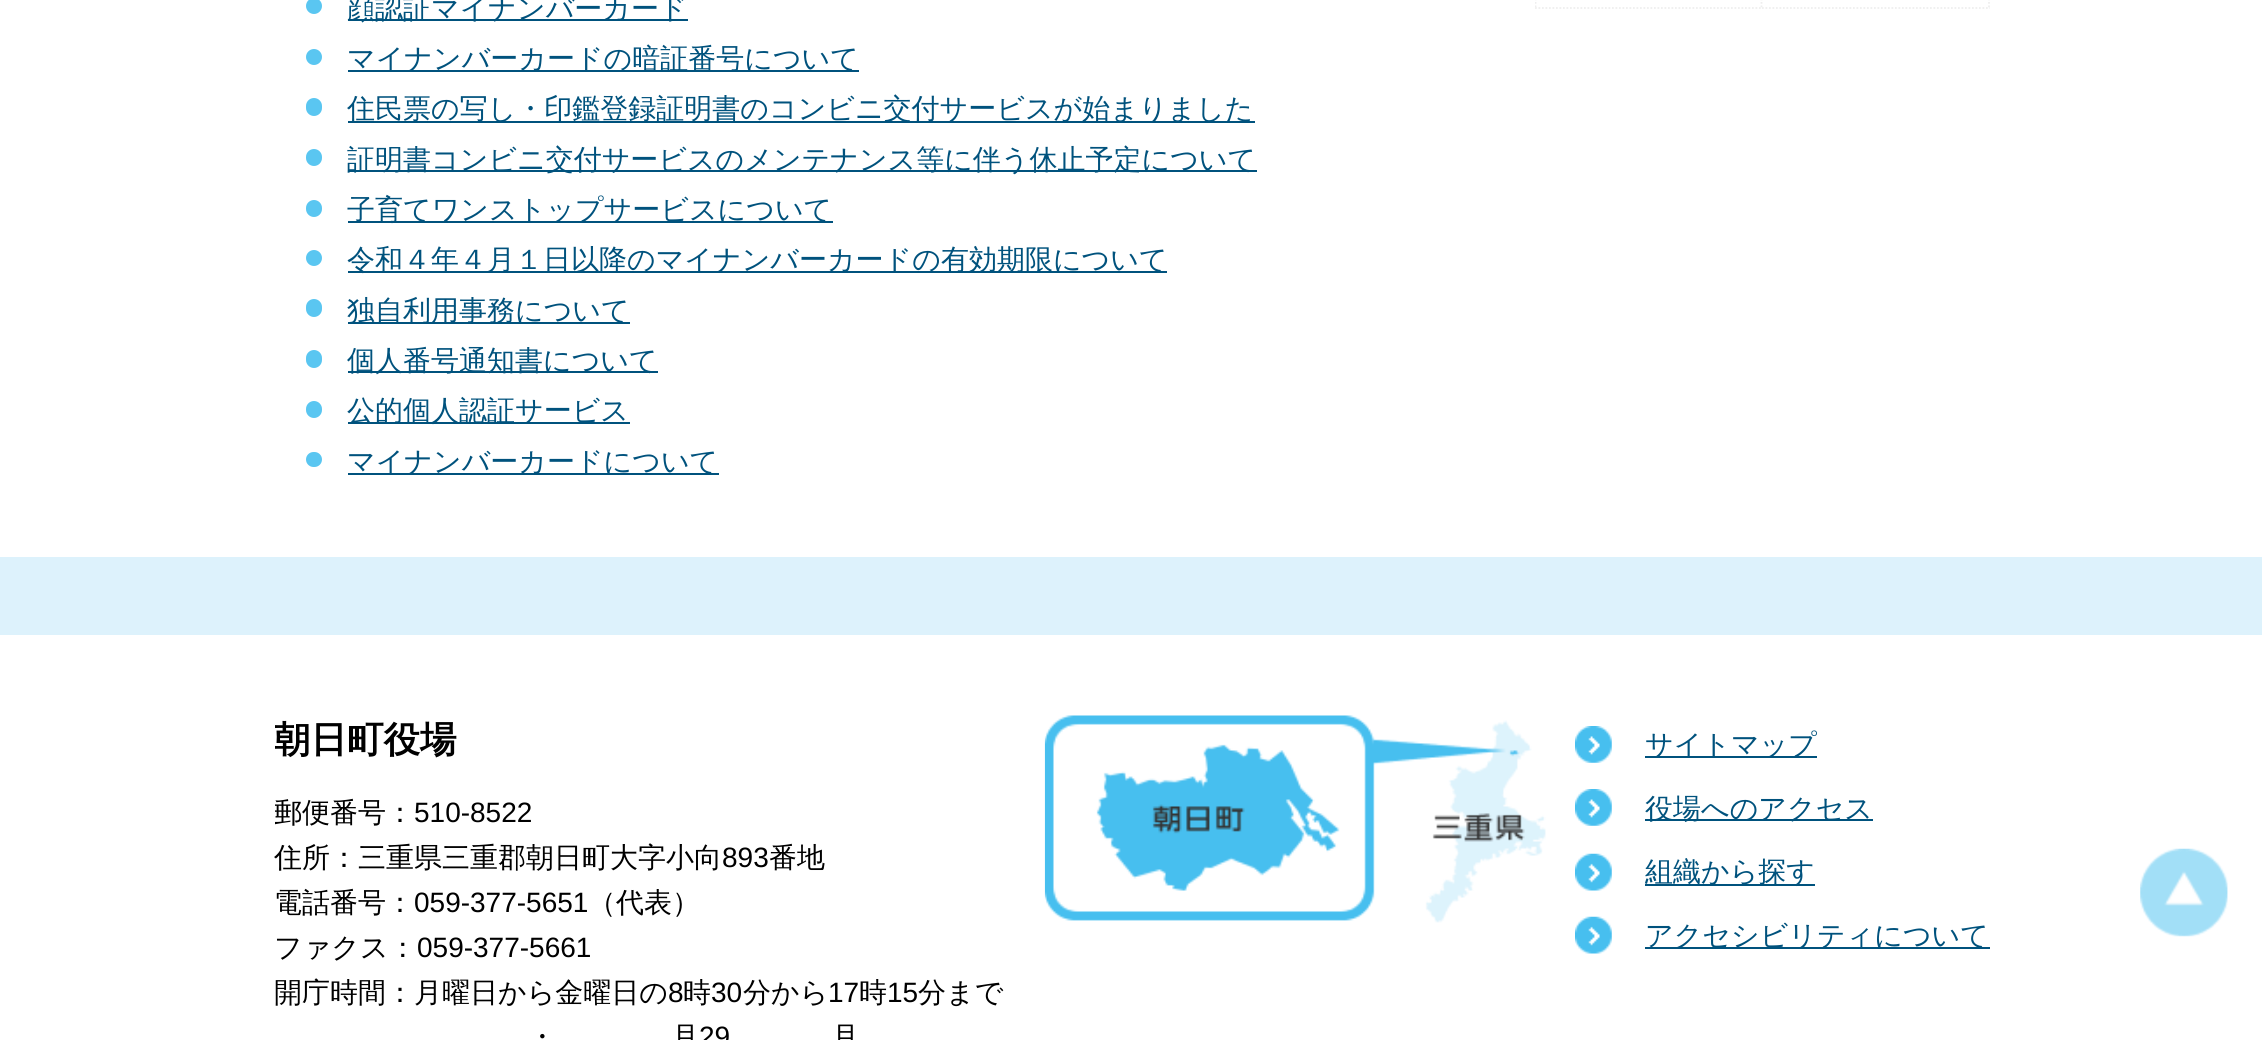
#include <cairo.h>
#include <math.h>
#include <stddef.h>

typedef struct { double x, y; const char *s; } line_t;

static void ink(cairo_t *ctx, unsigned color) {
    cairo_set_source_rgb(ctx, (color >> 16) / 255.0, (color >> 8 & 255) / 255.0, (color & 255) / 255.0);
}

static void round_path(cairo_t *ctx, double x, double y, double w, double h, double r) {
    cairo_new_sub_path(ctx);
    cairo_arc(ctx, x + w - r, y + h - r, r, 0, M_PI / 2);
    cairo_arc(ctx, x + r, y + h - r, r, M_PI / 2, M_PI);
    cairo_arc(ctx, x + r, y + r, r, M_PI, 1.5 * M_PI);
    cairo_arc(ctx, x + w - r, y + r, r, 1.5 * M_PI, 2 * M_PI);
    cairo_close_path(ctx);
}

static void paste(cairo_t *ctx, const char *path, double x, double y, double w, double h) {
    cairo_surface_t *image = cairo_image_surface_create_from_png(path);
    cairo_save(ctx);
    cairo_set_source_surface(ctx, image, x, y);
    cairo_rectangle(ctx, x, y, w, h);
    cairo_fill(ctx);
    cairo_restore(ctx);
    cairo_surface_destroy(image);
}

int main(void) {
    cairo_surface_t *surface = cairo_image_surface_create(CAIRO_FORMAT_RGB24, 2262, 1040);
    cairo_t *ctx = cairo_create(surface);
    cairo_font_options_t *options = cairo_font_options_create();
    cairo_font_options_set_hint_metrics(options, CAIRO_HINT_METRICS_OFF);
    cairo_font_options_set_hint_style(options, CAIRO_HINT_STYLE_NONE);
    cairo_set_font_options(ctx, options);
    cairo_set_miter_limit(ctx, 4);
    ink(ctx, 0xFFFFFF);
    cairo_paint(ctx);
    ink(ctx, 0x5AC6F1);
    cairo_arc(ctx, 314, 6, 8, 0, 2 * M_PI);
    cairo_fill(ctx);
    ink(ctx, 0x00527D);
    cairo_rectangle(ctx, 348, 19, 340, 2);
    cairo_fill(ctx);
    cairo_select_font_face(ctx, "WenQuanYi Zen Hei Medium", CAIRO_FONT_SLANT_NORMAL, CAIRO_FONT_WEIGHT_NORMAL);
    cairo_set_font_size(ctx, 28);
    cairo_move_to(ctx, 347, 18);
    cairo_show_text(ctx, "顔認証マイナンバーカード");
    ink(ctx, 0x5AC6F1);
    cairo_new_path(ctx);
    cairo_arc(ctx, 314, 57, 8, 0, 2 * M_PI);
    cairo_fill(ctx);
    ink(ctx, 0x00527D);
    cairo_rectangle(ctx, 348, 70, 511, 2);
    cairo_fill(ctx);
    cairo_move_to(ctx, 347, 68);
    cairo_show_text(ctx, "マイナンバーカードの暗証番号について");
    ink(ctx, 0x5AC6F1);
    round_path(ctx, 306, 98, 16, 18, 8);
    cairo_fill(ctx);
    ink(ctx, 0x00527D);
    cairo_rectangle(ctx, 348, 121, 907, 2);
    cairo_fill(ctx);
    cairo_move_to(ctx, 347, 118);
    cairo_show_text(ctx, "住民票の写し・印鑑登録証明書のコンビニ交付サービスが始まりました");
    ink(ctx, 0x5AC6F1);
    round_path(ctx, 306, 149, 16, 17, 8);
    cairo_fill(ctx);
    ink(ctx, 0x00527D);
    cairo_rectangle(ctx, 348, 170, 909, 2);
    cairo_fill(ctx);
    cairo_move_to(ctx, 347, 169);
    cairo_show_text(ctx, "証明書コンビニ交付サービスのメンテナンス等に伴う休止予定について");
    ink(ctx, 0x5AC6F1);
    round_path(ctx, 306, 200, 16, 17, 8);
    cairo_fill(ctx);
    ink(ctx, 0x00527D);
    cairo_rectangle(ctx, 348, 221, 485, 2);
    cairo_fill(ctx);
    cairo_move_to(ctx, 347, 219);
    cairo_show_text(ctx, "子育てワンストップサービスについて");
    ink(ctx, 0x5AC6F1);
    cairo_new_path(ctx);
    cairo_arc(ctx, 314, 258, 8, 0, 2 * M_PI);
    cairo_fill(ctx);
    ink(ctx, 0x00527D);
    cairo_rectangle(ctx, 348, 271, 819, 2);
    cairo_fill(ctx);
    cairo_move_to(ctx, 347, 269);
    cairo_show_text(ctx, "令和４年４月１日以降のマイナンバーカードの有効期限について");
    ink(ctx, 0x5AC6F1);
    round_path(ctx, 306, 299, 16, 18, 8);
    cairo_fill(ctx);
    ink(ctx, 0x00527D);
    cairo_rectangle(ctx, 348, 322, 282, 2);
    cairo_fill(ctx);
    cairo_move_to(ctx, 347, 320);
    cairo_show_text(ctx, "独自利用事務について");
    ink(ctx, 0x5AC6F1);
    round_path(ctx, 306, 350, 16, 18, 8);
    cairo_fill(ctx);
    ink(ctx, 0x00527D);
    cairo_rectangle(ctx, 348, 371, 310, 2);
    cairo_fill(ctx);
    cairo_move_to(ctx, 347, 370);
    cairo_show_text(ctx, "個人番号通知書について");
    ink(ctx, 0x5AC6F1);
    round_path(ctx, 306, 401, 16, 17, 8);
    cairo_fill(ctx);
    ink(ctx, 0x00527D);
    cairo_rectangle(ctx, 348, 422, 282, 2);
    cairo_fill(ctx);
    cairo_move_to(ctx, 347, 420);
    cairo_show_text(ctx, "公的個人認証サービス");
    ink(ctx, 0x5AC6F1);
    round_path(ctx, 306, 452, 16, 15, 7.5);
    cairo_fill(ctx);
    ink(ctx, 0x00527D);
    cairo_rectangle(ctx, 348, 473, 371, 2);
    cairo_fill(ctx);
    cairo_move_to(ctx, 347, 471);
    cairo_show_text(ctx, "マイナンバーカードについて");
    cairo_new_path(ctx);
    cairo_move_to(ctx, 1761.5, -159);
    cairo_line_to(ctx, 1761.5, 9);
    ink(ctx, 0xEEEEEE);
    cairo_set_line_width(ctx, 1.8);
    cairo_set_dash(ctx, (double[]){1.75, 1.75}, 2, 0);
    cairo_stroke(ctx);
    cairo_new_path(ctx);
    cairo_move_to(ctx, 1535, 8);
    cairo_line_to(ctx, 1762, 8);
    cairo_stroke(ctx);
    cairo_save(ctx);
    cairo_rectangle(ctx, 1535, 0, 455, 9);
    cairo_clip(ctx);
    cairo_new_path(ctx);
    cairo_move_to(ctx, 1535.5, -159);
    cairo_line_to(ctx, 1535.5, 9);
    cairo_stroke(ctx);
    cairo_restore(ctx);
    cairo_new_path(ctx);
    cairo_move_to(ctx, 1989, -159);
    cairo_line_to(ctx, 1989, 9);
    cairo_stroke(ctx);
    cairo_new_path(ctx);
    cairo_move_to(ctx, 1762, 8);
    cairo_line_to(ctx, 1990, 8);
    cairo_stroke(ctx);
    ink(ctx, 0xDDF2FC);
    cairo_rectangle(ctx, 0, 557, 2262, 78);
    cairo_fill(ctx);
    cairo_save(ctx);
    cairo_rectangle(ctx, 275, 714, 752, 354);
    cairo_clip(ctx);
    cairo_select_font_face(ctx, "WenQuanYi Zen Hei", CAIRO_FONT_SLANT_NORMAL, CAIRO_FONT_WEIGHT_BOLD);
    cairo_set_font_size(ctx, 36.5);
    ink(ctx, 0x000000);
    cairo_move_to(ctx, 274, 752);
    cairo_show_text(ctx, "朝日町役場");
    cairo_select_font_face(ctx, "WenQuanYi Zen Hei Medium", CAIRO_FONT_SLANT_NORMAL, CAIRO_FONT_WEIGHT_NORMAL);
    cairo_set_font_size(ctx, 28);
    cairo_move_to(ctx, 274, 822);
    cairo_show_text(ctx, "郵便番号：");
    cairo_restore(ctx);
    cairo_select_font_face(ctx, "Liberation Sans", CAIRO_FONT_SLANT_NORMAL, CAIRO_FONT_WEIGHT_NORMAL);
    ink(ctx, 0x000000);
    cairo_move_to(ctx, 414, 822);
    cairo_show_text(ctx, "510-8522");
    cairo_select_font_face(ctx, "WenQuanYi Zen Hei Medium", CAIRO_FONT_SLANT_NORMAL, CAIRO_FONT_WEIGHT_NORMAL);
    cairo_move_to(ctx, 274, 867);
    cairo_show_text(ctx, "住所：三重県三重郡朝日町大字小向");
    cairo_select_font_face(ctx, "Liberation Sans", CAIRO_FONT_SLANT_NORMAL, CAIRO_FONT_WEIGHT_NORMAL);
    cairo_move_to(ctx, 722, 867);
    cairo_show_text(ctx, "893");
    cairo_select_font_face(ctx, "WenQuanYi Zen Hei Medium", CAIRO_FONT_SLANT_NORMAL, CAIRO_FONT_WEIGHT_NORMAL);
    cairo_move_to(ctx, 769, 867);
    cairo_show_text(ctx, "番地");
    cairo_move_to(ctx, 274, 912);
    cairo_show_text(ctx, "電話番号：");
    cairo_select_font_face(ctx, "Liberation Sans", CAIRO_FONT_SLANT_NORMAL, CAIRO_FONT_WEIGHT_NORMAL);
    cairo_move_to(ctx, 414, 912);
    cairo_show_text(ctx, "059-377-5651");
    cairo_select_font_face(ctx, "WenQuanYi Zen Hei Medium", CAIRO_FONT_SLANT_NORMAL, CAIRO_FONT_WEIGHT_NORMAL);
    cairo_move_to(ctx, 588, 912);
    cairo_show_text(ctx, "（代表）");
    cairo_move_to(ctx, 274, 957);
    cairo_show_text(ctx, "ファクス：");
    cairo_select_font_face(ctx, "Liberation Sans", CAIRO_FONT_SLANT_NORMAL, CAIRO_FONT_WEIGHT_NORMAL);
    cairo_move_to(ctx, 417, 957);
    cairo_show_text(ctx, "059-377-5661");
    cairo_select_font_face(ctx, "WenQuanYi Zen Hei Medium", CAIRO_FONT_SLANT_NORMAL, CAIRO_FONT_WEIGHT_NORMAL);
    cairo_move_to(ctx, 274, 1002);
    cairo_show_text(ctx, "開庁時間：月曜日から金曜日の");
    cairo_select_font_face(ctx, "Liberation Sans", CAIRO_FONT_SLANT_NORMAL, CAIRO_FONT_WEIGHT_NORMAL);
    cairo_move_to(ctx, 668, 1002);
    cairo_show_text(ctx, "8");
    cairo_select_font_face(ctx, "WenQuanYi Zen Hei Medium", CAIRO_FONT_SLANT_NORMAL, CAIRO_FONT_WEIGHT_NORMAL);
    cairo_move_to(ctx, 683, 1002);
    cairo_show_text(ctx, "時");
    cairo_select_font_face(ctx, "Liberation Sans", CAIRO_FONT_SLANT_NORMAL, CAIRO_FONT_WEIGHT_NORMAL);
    cairo_move_to(ctx, 711, 1002);
    cairo_show_text(ctx, "30");
    cairo_select_font_face(ctx, "WenQuanYi Zen Hei Medium", CAIRO_FONT_SLANT_NORMAL, CAIRO_FONT_WEIGHT_NORMAL);
    cairo_move_to(ctx, 743, 1002);
    cairo_show_text(ctx, "分から");
    cairo_select_font_face(ctx, "Liberation Sans", CAIRO_FONT_SLANT_NORMAL, CAIRO_FONT_WEIGHT_NORMAL);
    cairo_move_to(ctx, 828, 1002);
    cairo_show_text(ctx, "17");
    cairo_select_font_face(ctx, "WenQuanYi Zen Hei Medium", CAIRO_FONT_SLANT_NORMAL, CAIRO_FONT_WEIGHT_NORMAL);
    cairo_move_to(ctx, 859, 1002);
    cairo_show_text(ctx, "時");
    cairo_select_font_face(ctx, "Liberation Sans", CAIRO_FONT_SLANT_NORMAL, CAIRO_FONT_WEIGHT_NORMAL);
    cairo_move_to(ctx, 887, 1002);
    cairo_show_text(ctx, "15");
    cairo_select_font_face(ctx, "WenQuanYi Zen Hei Medium", CAIRO_FONT_SLANT_NORMAL, CAIRO_FONT_WEIGHT_NORMAL);
    {
        static const line_t items[] = {
            {918, 1002, "分まで"},
            {528, 1046, "・"},
            {671, 1046, "月"},
        };
        for (size_t i = 0; i < sizeof items / sizeof *items; i++) {
            cairo_move_to(ctx, items[i].x, items[i].y);
            cairo_show_text(ctx, items[i].s);
        }
    }
    cairo_select_font_face(ctx, "Liberation Sans", CAIRO_FONT_SLANT_NORMAL, CAIRO_FONT_WEIGHT_NORMAL);
    cairo_move_to(ctx, 699, 1046);
    cairo_show_text(ctx, "29");
    cairo_select_font_face(ctx, "WenQuanYi Zen Hei Medium", CAIRO_FONT_SLANT_NORMAL, CAIRO_FONT_WEIGHT_NORMAL);
    cairo_move_to(ctx, 831, 1046);
    cairo_show_text(ctx, "月");
    paste(ctx, "media/1.png", 1044, 715, 502, 208);
    paste(ctx, "media/2.png", 1575, 726, 37, 37);
    ink(ctx, 0x00527D);
    cairo_rectangle(ctx, 1645, 756, 172, 2);
    cairo_fill(ctx);
    cairo_move_to(ctx, 1645, 754);
    cairo_show_text(ctx, "サイトマップ");
    paste(ctx, "media/3.png", 1575, 789, 37, 37);
    cairo_rectangle(ctx, 1645, 819, 228, 2);
    cairo_fill(ctx);
    cairo_move_to(ctx, 1645, 818);
    cairo_show_text(ctx, "役場へのアクセス");
    paste(ctx, "media/4.png", 1575, 853, 37, 38);
    cairo_rectangle(ctx, 1645, 884, 170, 2);
    cairo_fill(ctx);
    cairo_move_to(ctx, 1645, 881);
    cairo_show_text(ctx, "組織から探す");
    paste(ctx, "media/4.png", 1575, 916, 37, 38);
    cairo_rectangle(ctx, 1645, 947, 345, 2);
    cairo_fill(ctx);
    cairo_move_to(ctx, 1645, 945);
    cairo_show_text(ctx, "アクセシビリティについて");
    paste(ctx, "media/5.png", 2140, 848, 88, 89);
    cairo_surface_write_to_png(surface, "image.png");
    cairo_font_options_destroy(options);
    cairo_destroy(ctx);
    cairo_surface_destroy(surface);
    return 0;
}
